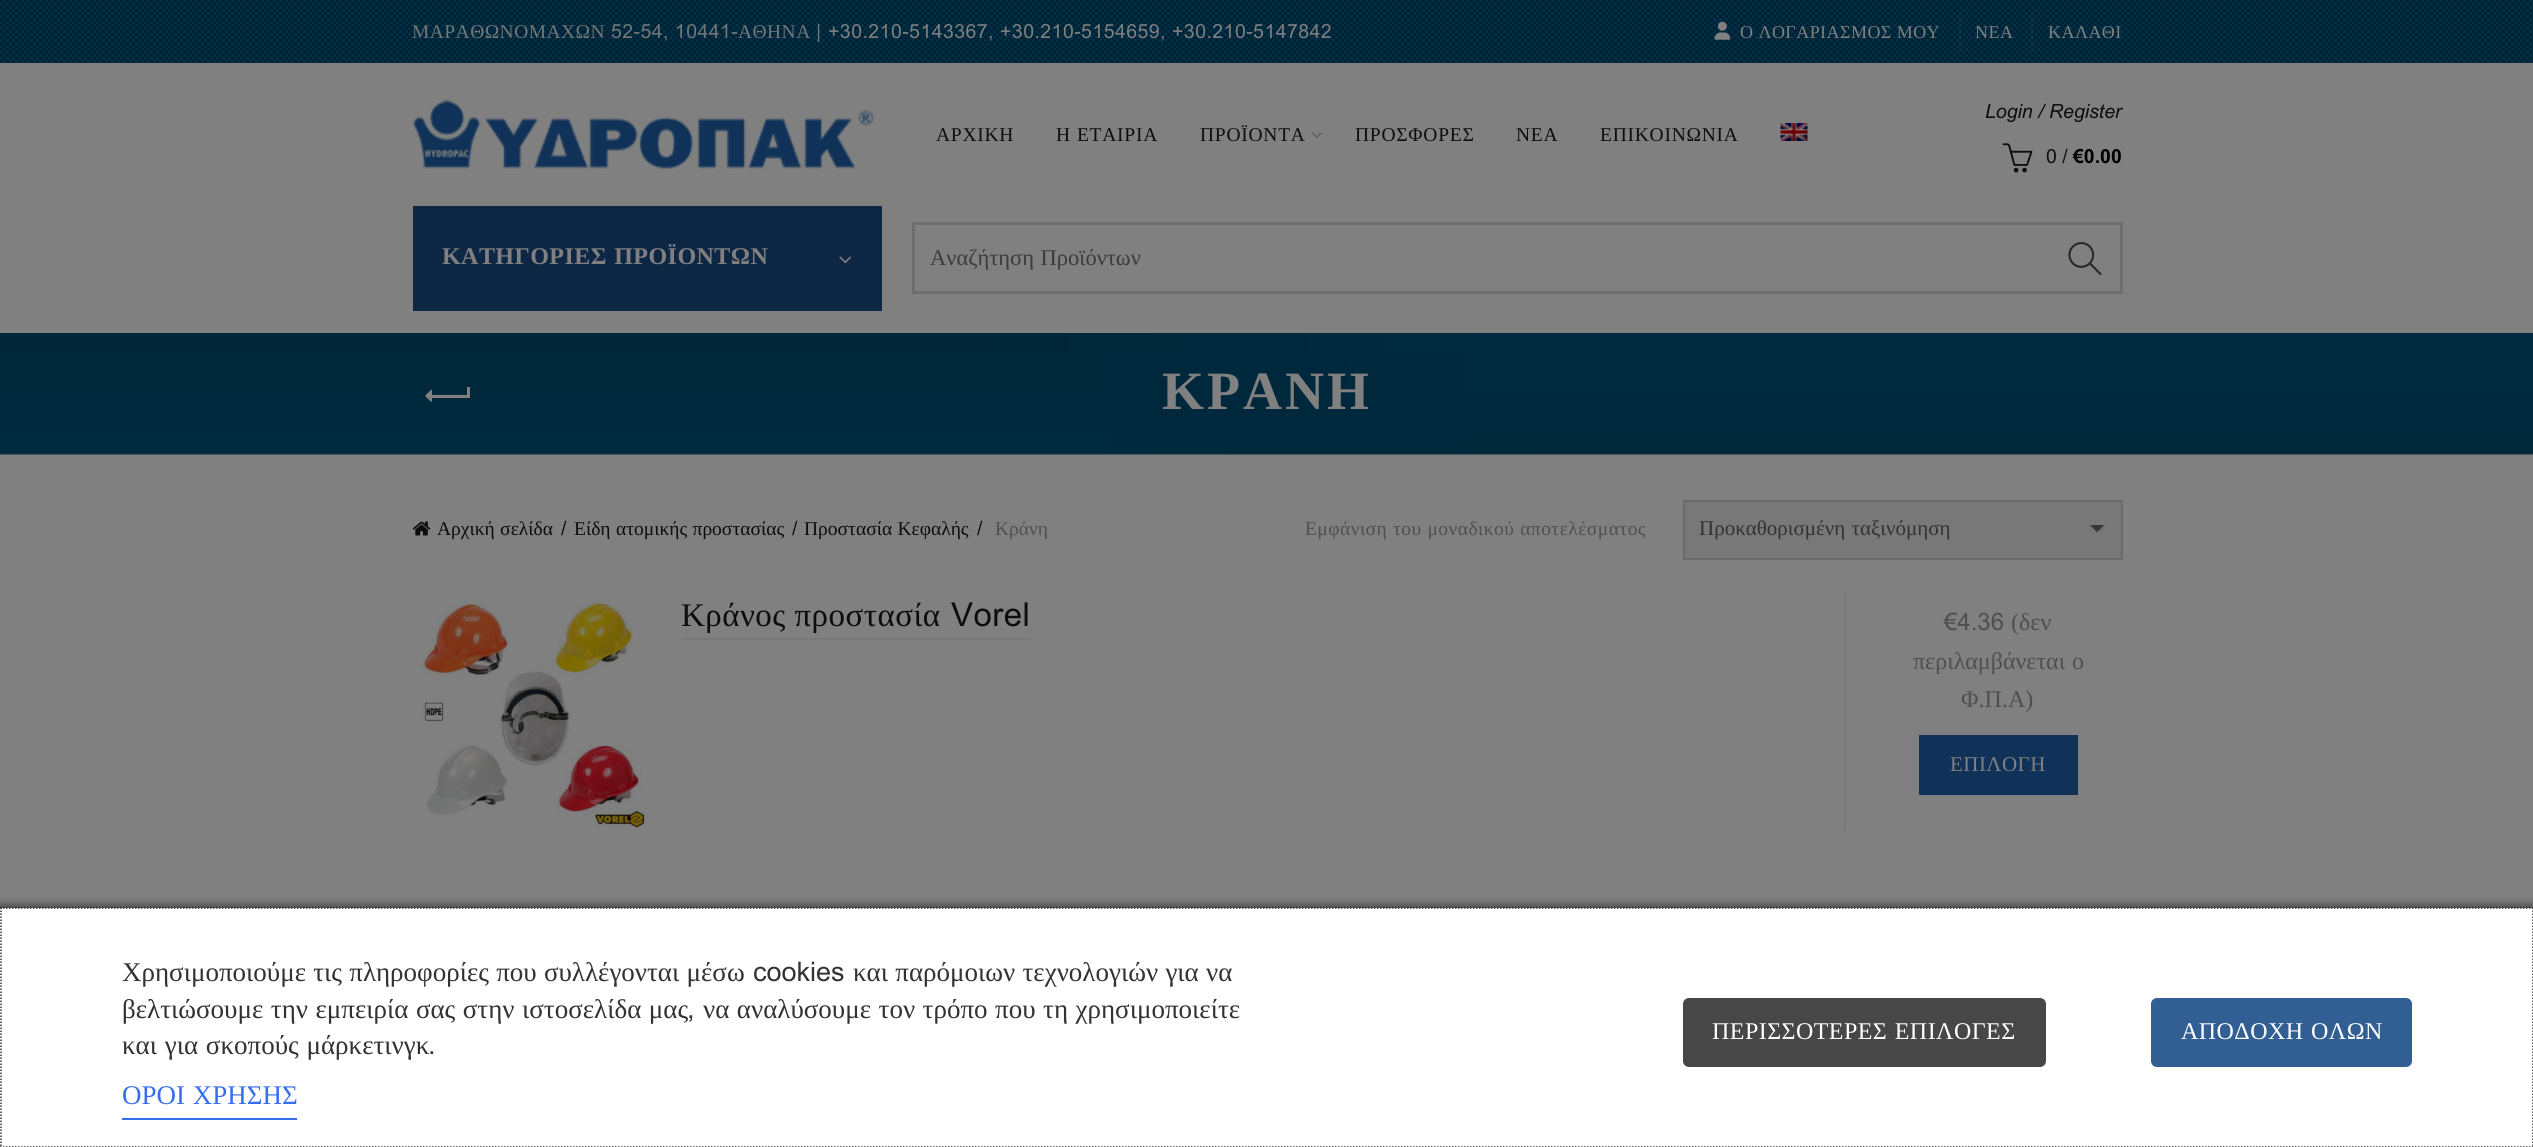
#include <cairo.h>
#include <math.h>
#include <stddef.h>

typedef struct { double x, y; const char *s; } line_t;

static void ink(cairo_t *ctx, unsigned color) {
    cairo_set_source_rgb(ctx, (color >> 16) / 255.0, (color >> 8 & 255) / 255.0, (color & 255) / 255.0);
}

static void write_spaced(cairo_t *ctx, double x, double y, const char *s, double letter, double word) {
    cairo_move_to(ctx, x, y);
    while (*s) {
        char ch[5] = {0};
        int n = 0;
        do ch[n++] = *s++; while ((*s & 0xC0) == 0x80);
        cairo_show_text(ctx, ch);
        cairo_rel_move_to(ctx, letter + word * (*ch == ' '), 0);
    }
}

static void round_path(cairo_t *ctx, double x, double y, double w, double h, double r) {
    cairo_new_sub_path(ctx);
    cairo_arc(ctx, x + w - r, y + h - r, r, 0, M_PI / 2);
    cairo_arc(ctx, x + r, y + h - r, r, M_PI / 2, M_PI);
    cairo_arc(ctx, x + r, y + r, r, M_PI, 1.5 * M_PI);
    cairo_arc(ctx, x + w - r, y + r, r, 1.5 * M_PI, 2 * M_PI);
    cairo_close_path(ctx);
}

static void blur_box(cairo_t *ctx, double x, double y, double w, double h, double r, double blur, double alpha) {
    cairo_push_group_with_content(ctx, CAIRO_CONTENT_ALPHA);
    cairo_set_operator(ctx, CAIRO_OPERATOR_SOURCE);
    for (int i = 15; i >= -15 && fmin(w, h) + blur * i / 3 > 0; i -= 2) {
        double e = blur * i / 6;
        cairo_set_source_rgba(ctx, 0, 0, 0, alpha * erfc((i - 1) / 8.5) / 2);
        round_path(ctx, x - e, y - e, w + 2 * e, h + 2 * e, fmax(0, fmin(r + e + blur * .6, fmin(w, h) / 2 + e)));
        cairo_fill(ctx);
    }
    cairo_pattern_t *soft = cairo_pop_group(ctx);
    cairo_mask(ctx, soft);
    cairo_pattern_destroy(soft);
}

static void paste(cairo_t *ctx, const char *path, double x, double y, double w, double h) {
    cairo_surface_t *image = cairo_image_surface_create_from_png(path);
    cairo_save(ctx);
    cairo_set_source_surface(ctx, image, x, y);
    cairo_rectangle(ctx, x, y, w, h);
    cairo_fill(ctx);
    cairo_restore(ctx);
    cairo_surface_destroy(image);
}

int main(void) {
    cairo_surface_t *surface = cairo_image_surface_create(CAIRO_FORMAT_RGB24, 2533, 1147);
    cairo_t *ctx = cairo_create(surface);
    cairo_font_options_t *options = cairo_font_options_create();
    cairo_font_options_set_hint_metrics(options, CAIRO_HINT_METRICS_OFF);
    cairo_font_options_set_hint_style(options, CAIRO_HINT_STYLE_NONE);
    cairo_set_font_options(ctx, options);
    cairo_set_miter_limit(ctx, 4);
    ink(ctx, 0x808080);
    cairo_paint(ctx);
    paste(ctx, "media/1.png", 0, 0, 2533, 63);
    cairo_select_font_face(ctx, "Liberation Serif", CAIRO_FONT_SLANT_NORMAL, CAIRO_FONT_WEIGHT_NORMAL);
    cairo_set_font_size(ctx, 19.5);
    ink(ctx, 0x737779);
    write_spaced(ctx, 412, 38, "ΜΑΡΑΘΩΝΟΜΑΧΩΝ", 0.45, 0);
    cairo_select_font_face(ctx, "Arial", CAIRO_FONT_SLANT_NORMAL, CAIRO_FONT_WEIGHT_NORMAL);
    write_spaced(ctx, 611, 38, "52-54, 10441-", 0.45, 0);
    cairo_select_font_face(ctx, "Liberation Serif", CAIRO_FONT_SLANT_NORMAL, CAIRO_FONT_WEIGHT_NORMAL);
    write_spaced(ctx, 738, 38, "ΑΘΗΝΑ", 0.45, 0);
    cairo_select_font_face(ctx, "Arial", CAIRO_FONT_SLANT_NORMAL, CAIRO_FONT_WEIGHT_NORMAL);
    write_spaced(ctx, 816, 38, "|", 0.45, 0);
    ink(ctx, 0x808080);
    write_spaced(ctx, 828, 38, "+30.210-5143367", 0.45, 0);
    ink(ctx, 0x737779);
    write_spaced(ctx, 988, 38, ",", 0.45, 0);
    ink(ctx, 0x808080);
    write_spaced(ctx, 1000, 38, "+30.210-5154659", 0.45, 0);
    ink(ctx, 0x737779);
    write_spaced(ctx, 1160, 38, ",", 0.45, 0);
    ink(ctx, 0x808080);
    write_spaced(ctx, 1172, 38, "+30.210-5147842", 0.45, 0);
    paste(ctx, "media/2.png", 1714, 21, 17, 19);
    cairo_select_font_face(ctx, "Liberation Serif", CAIRO_FONT_SLANT_NORMAL, CAIRO_FONT_WEIGHT_NORMAL);
    cairo_set_font_size(ctx, 18);
    write_spaced(ctx, 1740, 38, "Ο ΛΟΓΑΡΙΑΣΜΟΣ ΜΟΥ", 0.45, 0);
    cairo_set_source_rgba(ctx, 0.502, 0.502, 0.502, 0.1);
    cairo_rectangle(ctx, 1959, 14, 2, 37);
    cairo_fill(ctx);
    ink(ctx, 0x808080);
    write_spaced(ctx, 1975, 38, "ΝΕΑ", 0.45, 0);
    cairo_set_source_rgba(ctx, 0.502, 0.502, 0.502, 0.1);
    cairo_rectangle(ctx, 2031, 14, 2, 37);
    cairo_fill(ctx);
    ink(ctx, 0x808080);
    write_spaced(ctx, 2048, 38, "ΚΑΛΑΘΙ", 0.45, 0);
    paste(ctx, "media/3.png", 413, 99, 461, 70);
    cairo_set_font_size(ctx, 19.5);
    ink(ctx, 0x0E0D0D);
    write_spaced(ctx, 936, 141, "ΑΡΧΙΚΗ", 0.75, 0);
    write_spaced(ctx, 1056, 141, "Η ΕΤΑΙΡΙΑ", 0.75, 0.5);
    write_spaced(ctx, 1200, 141, "ΠΡΟΪΟΝΤΑ", 0.75, 0);
    paste(ctx, "media/4.png", 1312, 132, 10, 6);
    {
        static const line_t items[] = {
            {1355, 141, "ΠΡΟΣΦΟΡΕΣ"},
            {1516, 141, "ΝΕΑ"},
            {1600, 141, "ΕΠΙΚΟΙΝΩΝΙΑ"},
        };
        for (size_t i = 0; i < sizeof items / sizeof *items; i++) {
            write_spaced(ctx, items[i].x, items[i].y, items[i].s, 0.75, 0);
        }
    }
    paste(ctx, "media/5.png", 1780, 123, 28, 18);
    cairo_select_font_face(ctx, "Arial", CAIRO_FONT_SLANT_ITALIC, CAIRO_FONT_WEIGHT_NORMAL);
    cairo_move_to(ctx, 1985, 118);
    cairo_show_text(ctx, "Login / Register");
    paste(ctx, "media/6.png", 2002, 143, 31, 30);
    cairo_select_font_face(ctx, "Arial", CAIRO_FONT_SLANT_NORMAL, CAIRO_FONT_WEIGHT_NORMAL);
    cairo_move_to(ctx, 2046, 163);
    cairo_show_text(ctx, "0 /");
    cairo_select_font_face(ctx, "Arial", CAIRO_FONT_SLANT_NORMAL, CAIRO_FONT_WEIGHT_BOLD);
    ink(ctx, 0x000000);
    cairo_move_to(ctx, 2073, 163);
    cairo_show_text(ctx, "€0.00");
    ink(ctx, 0x0D2744);
    cairo_rectangle(ctx, 413, 206, 469, 105);
    cairo_fill(ctx);
    cairo_select_font_face(ctx, "Liberation Serif", CAIRO_FONT_SLANT_NORMAL, CAIRO_FONT_WEIGHT_BOLD);
    cairo_set_font_size(ctx, 24);
    ink(ctx, 0x808080);
    write_spaced(ctx, 442, 264, "ΚΑΤΗΓΟΡΙΕΣ ΠΡΟΪΟΝΤΩΝ", 0.45, 1);
    paste(ctx, "media/7.png", 839, 256, 13, 8);
    cairo_rectangle(ctx, 913.5, 223.5, 1208, 69);
    ink(ctx, 0x6E6E6E);
    cairo_set_line_width(ctx, 3);
    cairo_stroke(ctx);
    cairo_select_font_face(ctx, "Liberation Serif", CAIRO_FONT_SLANT_NORMAL, CAIRO_FONT_WEIGHT_NORMAL);
    cairo_set_font_size(ctx, 22.5);
    ink(ctx, 0x3B3B3B);
    write_spaced(ctx, 930, 265, "Αναζήτηση Προϊόντων", 0, 1);
    paste(ctx, "media/8.png", 2068, 242, 34, 33);
    paste(ctx, "media/9.png", 0, 333, 2533, 122);
    cairo_set_source_rgba(ctx, 0.329, 0.329, 0.329, 0.15);
    cairo_rectangle(ctx, 0, 453, 2533, 2);
    cairo_fill(ctx);
    ink(ctx, 0x808080);
    cairo_rectangle(ctx, 431, 395, 37, 3);
    cairo_fill(ctx);
    paste(ctx, "media/10.png", 425, 389, 7, 13);
    cairo_rectangle(ctx, 467, 387, 3, 11);
    cairo_fill(ctx);
    cairo_select_font_face(ctx, "Liberation Serif", CAIRO_FONT_SLANT_NORMAL, CAIRO_FONT_WEIGHT_BOLD);
    cairo_set_font_size(ctx, 54);
    write_spaced(ctx, 1162, 409, "ΚΡΑΝΗ", 3, 0);
    paste(ctx, "media/11.png", 412, 521, 19, 15);
    cairo_select_font_face(ctx, "Liberation Serif", CAIRO_FONT_SLANT_NORMAL, CAIRO_FONT_WEIGHT_NORMAL);
    cairo_set_font_size(ctx, 19.5);
    ink(ctx, 0x0E0D0D);
    write_spaced(ctx, 437, 535, "Αρχική σελίδα", 0, 0.5);
    cairo_select_font_face(ctx, "Arial", CAIRO_FONT_SLANT_NORMAL, CAIRO_FONT_WEIGHT_NORMAL);
    cairo_move_to(ctx, 561, 535);
    cairo_show_text(ctx, "/");
    cairo_select_font_face(ctx, "Liberation Serif", CAIRO_FONT_SLANT_NORMAL, CAIRO_FONT_WEIGHT_NORMAL);
    write_spaced(ctx, 574, 535, "Είδη ατομικής προστασίας", 0, 0.5);
    cairo_select_font_face(ctx, "Arial", CAIRO_FONT_SLANT_NORMAL, CAIRO_FONT_WEIGHT_NORMAL);
    cairo_move_to(ctx, 792, 535);
    cairo_show_text(ctx, "/");
    cairo_select_font_face(ctx, "Liberation Serif", CAIRO_FONT_SLANT_NORMAL, CAIRO_FONT_WEIGHT_NORMAL);
    write_spaced(ctx, 804, 535, "Προστασία Κεφαλής", 0, 0.5);
    cairo_select_font_face(ctx, "Arial", CAIRO_FONT_SLANT_NORMAL, CAIRO_FONT_WEIGHT_NORMAL);
    cairo_move_to(ctx, 977, 535);
    cairo_show_text(ctx, "/");
    cairo_select_font_face(ctx, "Liberation Serif", CAIRO_FONT_SLANT_NORMAL, CAIRO_FONT_WEIGHT_NORMAL);
    ink(ctx, 0x4F4F4F);
    cairo_move_to(ctx, 995, 535);
    cairo_show_text(ctx, "Κράνη");
    write_spaced(ctx, 1305, 535, "Εμφάνιση του μοναδικού αποτελέσματος", 0.45, 0.5);
    ink(ctx, 0x787878);
    cairo_rectangle(ctx, 1685, 502, 436, 56);
    cairo_fill(ctx);
    paste(ctx, "media/12.png", 2089, 525, 16, 8);
    cairo_rectangle(ctx, 1684, 501, 438, 58);
    ink(ctx, 0x6A6A6A);
    cairo_set_line_width(ctx, 2);
    cairo_stroke(ctx);
    cairo_set_font_size(ctx, 21);
    ink(ctx, 0x323232);
    write_spaced(ctx, 1699, 535, "Προκαθορισμένη ταξινόμηση", 0, 1);
    paste(ctx, "media/13.png", 420, 599, 228, 229);
    ink(ctx, 0x797979);
    cairo_rectangle(ctx, 1844, 591, 2, 240);
    cairo_fill(ctx);
    cairo_set_font_size(ctx, 33);
    ink(ctx, 0x0E0D0D);
    write_spaced(ctx, 681, 626, "Κράνος προστασία", 0.45, 0);
    ink(ctx, 0x797979);
    cairo_rectangle(ctx, 681, 638, 350, 2);
    cairo_fill(ctx);
    cairo_select_font_face(ctx, "Arial", CAIRO_FONT_SLANT_NORMAL, CAIRO_FONT_WEIGHT_NORMAL);
    ink(ctx, 0x0E0D0D);
    write_spaced(ctx, 951, 626, "Vorel", 0.45, 0);
    cairo_set_font_size(ctx, 24);
    ink(ctx, 0x4F4F4F);
    cairo_move_to(ctx, 1944, 630);
    cairo_show_text(ctx, "€4.36");
    cairo_select_font_face(ctx, "Liberation Serif", CAIRO_FONT_SLANT_NORMAL, CAIRO_FONT_WEIGHT_NORMAL);
    cairo_move_to(ctx, 2011, 630);
    cairo_show_text(ctx, "(δεν");
    write_spaced(ctx, 1913, 669, "περιλαμβάνεται ο", 0, 1);
    cairo_move_to(ctx, 1961, 707);
    cairo_show_text(ctx, "Φ.Π.Α)");
    ink(ctx, 0x113258);
    cairo_rectangle(ctx, 1919, 735, 159, 60);
    cairo_fill(ctx);
    cairo_set_font_size(ctx, 21);
    ink(ctx, 0x808080);
    write_spaced(ctx, 1950, 771, "ΕΠΙΛΟΓΗ", 0.45, 0);
    ink(ctx, 0x000000);
    blur_box(ctx, 0, 905, 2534, 240, 0, 4, 0.5);
    ink(ctx, 0xFFFFFF);
    cairo_rectangle(ctx, 0, 908, 2533, 239);
    cairo_fill(ctx);
    cairo_new_path(ctx);
    cairo_move_to(ctx, 0, 908);
    cairo_line_to(ctx, 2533.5, 908);
    ink(ctx, 0x333333);
    cairo_set_line_width(ctx, 1.5);
    cairo_set_dash(ctx, (double[]){1.5, 1.5}, 2, 0);
    cairo_stroke(ctx);
    cairo_new_path(ctx);
    cairo_move_to(ctx, 2533, 907.5);
    cairo_line_to(ctx, 2533, 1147.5);
    cairo_stroke(ctx);
    cairo_new_path(ctx);
    cairo_move_to(ctx, 0, 1147);
    cairo_line_to(ctx, 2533.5, 1147);
    cairo_stroke(ctx);
    cairo_new_path(ctx);
    cairo_move_to(ctx, 1, 907.5);
    cairo_line_to(ctx, 1, 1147.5);
    cairo_stroke(ctx);
    cairo_set_font_size(ctx, 27);
    ink(ctx, 0x323232);
    write_spaced(ctx, 122, 981, "Χρησιμοποιούμε τις πληροφορίες που συλλέγονται μέσω", 0, 0.5);
    cairo_select_font_face(ctx, "Arial", CAIRO_FONT_SLANT_NORMAL, CAIRO_FONT_WEIGHT_NORMAL);
    cairo_move_to(ctx, 753, 981);
    cairo_show_text(ctx, "cookies");
    cairo_select_font_face(ctx, "Liberation Serif", CAIRO_FONT_SLANT_NORMAL, CAIRO_FONT_WEIGHT_NORMAL);
    write_spaced(ctx, 853, 981, "και παρόμοιων τεχνολογιών για να", 0, 0.5);
    write_spaced(ctx, 122, 1018, "βελτιώσουμε την εμπειρία σας στην ιστοσελίδα μας", 0, 0.75);
    cairo_select_font_face(ctx, "Arial", CAIRO_FONT_SLANT_NORMAL, CAIRO_FONT_WEIGHT_NORMAL);
    cairo_move_to(ctx, 687, 1018);
    cairo_show_text(ctx, ",");
    cairo_select_font_face(ctx, "Liberation Serif", CAIRO_FONT_SLANT_NORMAL, CAIRO_FONT_WEIGHT_NORMAL);
    write_spaced(ctx, 703, 1018, "να αναλύσουμε τον τρόπο που τη χρησιμοποιείτε", 0, 0.75);
    write_spaced(ctx, 122, 1054, "και για σκοπούς μάρκετινγκ", 0, 1);
    cairo_select_font_face(ctx, "Arial", CAIRO_FONT_SLANT_NORMAL, CAIRO_FONT_WEIGHT_NORMAL);
    cairo_move_to(ctx, 428, 1054);
    cairo_show_text(ctx, ".");
    cairo_select_font_face(ctx, "Liberation Serif", CAIRO_FONT_SLANT_NORMAL, CAIRO_FONT_WEIGHT_NORMAL);
    ink(ctx, 0x376EF0);
    write_spaced(ctx, 122, 1104, "ΟΡΟΙ ΧΡΗΣΗΣ", 0, 1);
    cairo_rectangle(ctx, 122, 1118, 175, 2);
    cairo_fill(ctx);
    ink(ctx, 0x474747);
    round_path(ctx, 1683, 998, 363, 69, 6);
    cairo_fill(ctx);
    cairo_set_font_size(ctx, 24);
    ink(ctx, 0xFFFFFF);
    write_spaced(ctx, 1712, 1039, "ΠΕΡΙΣΣΟΤΕΡΕΣ ΕΠΙΛΟΓΕΣ", 0.45, 1);
    ink(ctx, 0x315F93);
    round_path(ctx, 2151, 998, 261, 69, 6);
    cairo_fill(ctx);
    ink(ctx, 0xFFFFFF);
    write_spaced(ctx, 2181, 1039, "ΑΠΟΔΟΧΗ ΟΛΩΝ", 0.45, 1);
    cairo_surface_write_to_png(surface, "image.png");
    cairo_font_options_destroy(options);
    cairo_destroy(ctx);
    cairo_surface_destroy(surface);
    return 0;
}
